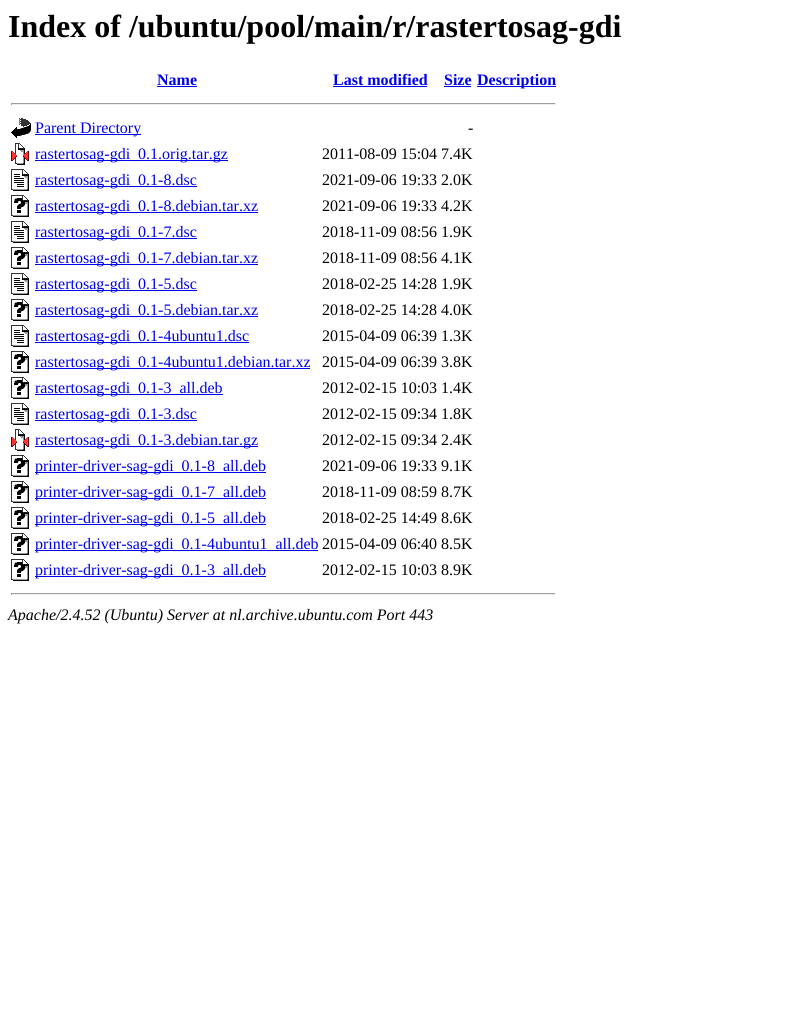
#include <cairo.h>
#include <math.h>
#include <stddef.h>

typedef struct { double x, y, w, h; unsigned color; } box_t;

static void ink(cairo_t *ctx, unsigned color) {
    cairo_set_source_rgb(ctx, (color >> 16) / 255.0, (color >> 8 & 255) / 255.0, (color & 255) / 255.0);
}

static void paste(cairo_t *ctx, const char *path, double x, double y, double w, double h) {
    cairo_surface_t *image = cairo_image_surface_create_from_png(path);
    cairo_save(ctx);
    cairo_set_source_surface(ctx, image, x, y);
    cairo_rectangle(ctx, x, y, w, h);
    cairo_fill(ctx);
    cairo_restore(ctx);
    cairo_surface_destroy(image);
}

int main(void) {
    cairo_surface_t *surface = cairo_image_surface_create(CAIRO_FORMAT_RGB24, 801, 1014);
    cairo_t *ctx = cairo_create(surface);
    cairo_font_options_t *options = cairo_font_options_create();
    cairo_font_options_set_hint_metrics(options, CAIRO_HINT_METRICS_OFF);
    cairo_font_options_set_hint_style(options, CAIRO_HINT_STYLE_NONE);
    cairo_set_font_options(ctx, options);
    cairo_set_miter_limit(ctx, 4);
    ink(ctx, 0xFFFFFF);
    cairo_paint(ctx);
    cairo_select_font_face(ctx, "Liberation Serif", CAIRO_FONT_SLANT_NORMAL, CAIRO_FONT_WEIGHT_BOLD);
    cairo_set_font_size(ctx, 32);
    ink(ctx, 0x000000);
    cairo_move_to(ctx, 8, 37);
    cairo_show_text(ctx, "Index of /ubuntu/pool/main/r/rastertosag-gdi");
    cairo_set_font_size(ctx, 16);
    ink(ctx, 0x0000EE);
    cairo_move_to(ctx, 157, 85);
    cairo_show_text(ctx, "Name");
    cairo_rectangle(ctx, 157, 86, 40, 1);
    cairo_fill(ctx);
    cairo_move_to(ctx, 333, 85);
    cairo_show_text(ctx, "Last modified");
    cairo_rectangle(ctx, 333, 86, 94, 1);
    cairo_fill(ctx);
    cairo_move_to(ctx, 444, 85);
    cairo_show_text(ctx, "Size");
    cairo_rectangle(ctx, 444, 86, 27, 1);
    cairo_fill(ctx);
    cairo_rectangle(ctx, 477, 86, 79, 1);
    cairo_fill(ctx);
    cairo_move_to(ctx, 477, 85);
    cairo_show_text(ctx, "Description");
    {
        static const box_t items[] = {
            {11, 103, 545, 1, 0x9F9F9F},
            {555, 103, 1, 2, 0xEEEEEE},
            {11, 104, 545, 1, 0xEEEEEE},
            {11, 103, 1, 2, 0x9F9F9F},
        };
        for (size_t i = 0; i < sizeof items / sizeof *items; i++) {
            ink(ctx, items[i].color);
            cairo_rectangle(ctx, items[i].x, items[i].y, items[i].w, items[i].h);
            cairo_fill(ctx);
        }
    }
    paste(ctx, "media/1.png", 11, 118, 20, 20);
    ink(ctx, 0x0000EE);
    cairo_rectangle(ctx, 35, 134, 106, 1);
    cairo_fill(ctx);
    cairo_select_font_face(ctx, "Liberation Serif", CAIRO_FONT_SLANT_NORMAL, CAIRO_FONT_WEIGHT_NORMAL);
    cairo_move_to(ctx, 35, 133);
    cairo_show_text(ctx, "Parent Directory");
    ink(ctx, 0x000000);
    cairo_move_to(ctx, 468, 133);
    cairo_show_text(ctx, "-");
    paste(ctx, "media/2.png", 11, 143, 18, 22);
    ink(ctx, 0x0000EE);
    cairo_rectangle(ctx, 35, 160, 193, 1);
    cairo_fill(ctx);
    cairo_move_to(ctx, 35, 159);
    cairo_show_text(ctx, "rastertosag-gdi_0.1.orig.tar.gz");
    ink(ctx, 0x000000);
    cairo_move_to(ctx, 322, 159);
    cairo_show_text(ctx, "2011-08-09 15:04 7.4K");
    paste(ctx, "media/3.png", 11, 169, 18, 22);
    ink(ctx, 0x0000EE);
    cairo_rectangle(ctx, 35, 186, 162, 1);
    cairo_fill(ctx);
    cairo_move_to(ctx, 35, 185);
    cairo_show_text(ctx, "rastertosag-gdi_0.1-8.dsc");
    ink(ctx, 0x000000);
    cairo_move_to(ctx, 322, 185);
    cairo_show_text(ctx, "2021-09-06 19:33 2.0K");
    paste(ctx, "media/4.png", 11, 195, 18, 22);
    ink(ctx, 0x0000EE);
    cairo_rectangle(ctx, 35, 212, 223, 1);
    cairo_fill(ctx);
    cairo_move_to(ctx, 35, 211);
    cairo_show_text(ctx, "rastertosag-gdi_0.1-8.debian.tar.xz");
    ink(ctx, 0x000000);
    cairo_move_to(ctx, 322, 211);
    cairo_show_text(ctx, "2021-09-06 19:33 4.2K");
    paste(ctx, "media/3.png", 11, 221, 18, 22);
    ink(ctx, 0x0000EE);
    cairo_rectangle(ctx, 35, 238, 162, 1);
    cairo_fill(ctx);
    cairo_move_to(ctx, 35, 237);
    cairo_show_text(ctx, "rastertosag-gdi_0.1-7.dsc");
    ink(ctx, 0x000000);
    cairo_move_to(ctx, 322, 237);
    cairo_show_text(ctx, "2018-11-09 08:56 1.9K");
    paste(ctx, "media/4.png", 11, 247, 18, 22);
    ink(ctx, 0x0000EE);
    cairo_rectangle(ctx, 35, 264, 223, 1);
    cairo_fill(ctx);
    cairo_move_to(ctx, 35, 263);
    cairo_show_text(ctx, "rastertosag-gdi_0.1-7.debian.tar.xz");
    ink(ctx, 0x000000);
    cairo_move_to(ctx, 322, 263);
    cairo_show_text(ctx, "2018-11-09 08:56 4.1K");
    paste(ctx, "media/3.png", 11, 273, 18, 22);
    ink(ctx, 0x0000EE);
    cairo_rectangle(ctx, 35, 290, 162, 1);
    cairo_fill(ctx);
    cairo_move_to(ctx, 35, 289);
    cairo_show_text(ctx, "rastertosag-gdi_0.1-5.dsc");
    ink(ctx, 0x000000);
    cairo_move_to(ctx, 322, 289);
    cairo_show_text(ctx, "2018-02-25 14:28 1.9K");
    paste(ctx, "media/4.png", 11, 299, 18, 22);
    ink(ctx, 0x0000EE);
    cairo_rectangle(ctx, 35, 316, 223, 1);
    cairo_fill(ctx);
    cairo_move_to(ctx, 35, 315);
    cairo_show_text(ctx, "rastertosag-gdi_0.1-5.debian.tar.xz");
    ink(ctx, 0x000000);
    cairo_move_to(ctx, 322, 315);
    cairo_show_text(ctx, "2018-02-25 14:28 4.0K");
    paste(ctx, "media/3.png", 11, 325, 18, 22);
    ink(ctx, 0x0000EE);
    cairo_rectangle(ctx, 35, 342, 214, 1);
    cairo_fill(ctx);
    cairo_move_to(ctx, 35, 341);
    cairo_show_text(ctx, "rastertosag-gdi_0.1-4ubuntu1.dsc");
    ink(ctx, 0x000000);
    cairo_move_to(ctx, 322, 341);
    cairo_show_text(ctx, "2015-04-09 06:39 1.3K");
    paste(ctx, "media/4.png", 11, 351, 18, 22);
    ink(ctx, 0x0000EE);
    cairo_rectangle(ctx, 35, 368, 275, 1);
    cairo_fill(ctx);
    cairo_move_to(ctx, 35, 367);
    cairo_show_text(ctx, "rastertosag-gdi_0.1-4ubuntu1.debian.tar.xz");
    ink(ctx, 0x000000);
    cairo_move_to(ctx, 322, 367);
    cairo_show_text(ctx, "2015-04-09 06:39 3.8K");
    paste(ctx, "media/4.png", 11, 377, 18, 22);
    ink(ctx, 0x0000EE);
    cairo_rectangle(ctx, 35, 394, 188, 1);
    cairo_fill(ctx);
    cairo_move_to(ctx, 35, 393);
    cairo_show_text(ctx, "rastertosag-gdi_0.1-3_all.deb");
    ink(ctx, 0x000000);
    cairo_move_to(ctx, 322, 393);
    cairo_show_text(ctx, "2012-02-15 10:03 1.4K");
    paste(ctx, "media/3.png", 11, 403, 18, 22);
    ink(ctx, 0x0000EE);
    cairo_rectangle(ctx, 35, 420, 162, 1);
    cairo_fill(ctx);
    cairo_move_to(ctx, 35, 419);
    cairo_show_text(ctx, "rastertosag-gdi_0.1-3.dsc");
    ink(ctx, 0x000000);
    cairo_move_to(ctx, 322, 419);
    cairo_show_text(ctx, "2012-02-15 09:34 1.8K");
    paste(ctx, "media/2.png", 11, 429, 18, 22);
    ink(ctx, 0x0000EE);
    cairo_rectangle(ctx, 35, 446, 223, 1);
    cairo_fill(ctx);
    cairo_move_to(ctx, 35, 445);
    cairo_show_text(ctx, "rastertosag-gdi_0.1-3.debian.tar.gz");
    ink(ctx, 0x000000);
    cairo_move_to(ctx, 322, 445);
    cairo_show_text(ctx, "2012-02-15 09:34 2.4K");
    paste(ctx, "media/4.png", 11, 455, 18, 22);
    ink(ctx, 0x0000EE);
    cairo_rectangle(ctx, 35, 472, 231, 1);
    cairo_fill(ctx);
    cairo_move_to(ctx, 35, 471);
    cairo_show_text(ctx, "printer-driver-sag-gdi_0.1-8_all.deb");
    ink(ctx, 0x000000);
    cairo_move_to(ctx, 322, 471);
    cairo_show_text(ctx, "2021-09-06 19:33 9.1K");
    paste(ctx, "media/4.png", 11, 481, 18, 22);
    ink(ctx, 0x0000EE);
    cairo_rectangle(ctx, 35, 498, 231, 1);
    cairo_fill(ctx);
    cairo_move_to(ctx, 35, 497);
    cairo_show_text(ctx, "printer-driver-sag-gdi_0.1-7_all.deb");
    ink(ctx, 0x000000);
    cairo_move_to(ctx, 322, 497);
    cairo_show_text(ctx, "2018-11-09 08:59 8.7K");
    paste(ctx, "media/4.png", 11, 507, 18, 22);
    ink(ctx, 0x0000EE);
    cairo_rectangle(ctx, 35, 524, 231, 1);
    cairo_fill(ctx);
    cairo_move_to(ctx, 35, 523);
    cairo_show_text(ctx, "printer-driver-sag-gdi_0.1-5_all.deb");
    ink(ctx, 0x000000);
    cairo_move_to(ctx, 322, 523);
    cairo_show_text(ctx, "2018-02-25 14:49 8.6K");
    paste(ctx, "media/4.png", 11, 533, 18, 22);
    ink(ctx, 0x0000EE);
    cairo_rectangle(ctx, 35, 550, 283, 1);
    cairo_fill(ctx);
    cairo_move_to(ctx, 35, 549);
    cairo_show_text(ctx, "printer-driver-sag-gdi_0.1-4ubuntu1_all.deb");
    ink(ctx, 0x000000);
    cairo_move_to(ctx, 322, 549);
    cairo_show_text(ctx, "2015-04-09 06:40 8.5K");
    paste(ctx, "media/4.png", 11, 559, 18, 22);
    ink(ctx, 0x0000EE);
    cairo_rectangle(ctx, 35, 576, 231, 1);
    cairo_fill(ctx);
    cairo_move_to(ctx, 35, 575);
    cairo_show_text(ctx, "printer-driver-sag-gdi_0.1-3_all.deb");
    ink(ctx, 0x000000);
    cairo_move_to(ctx, 322, 575);
    cairo_show_text(ctx, "2012-02-15 10:03 8.9K");
    {
        static const box_t items[] = {
            {11, 593, 545, 1, 0x9F9F9F},
            {555, 593, 1, 2, 0xEEEEEE},
            {11, 594, 545, 1, 0xEEEEEE},
            {11, 593, 1, 2, 0x9F9F9F},
        };
        for (size_t i = 0; i < sizeof items / sizeof *items; i++) {
            ink(ctx, items[i].color);
            cairo_rectangle(ctx, items[i].x, items[i].y, items[i].w, items[i].h);
            cairo_fill(ctx);
        }
    }
    cairo_select_font_face(ctx, "Liberation Serif", CAIRO_FONT_SLANT_ITALIC, CAIRO_FONT_WEIGHT_NORMAL);
    ink(ctx, 0x000000);
    cairo_move_to(ctx, 8, 620);
    cairo_show_text(ctx, "Apache/2.4.52 (Ubuntu) Server at nl.archive.ubuntu.com Port 443");
    cairo_surface_write_to_png(surface, "image.png");
    cairo_font_options_destroy(options);
    cairo_destroy(ctx);
    cairo_surface_destroy(surface);
    return 0;
}
